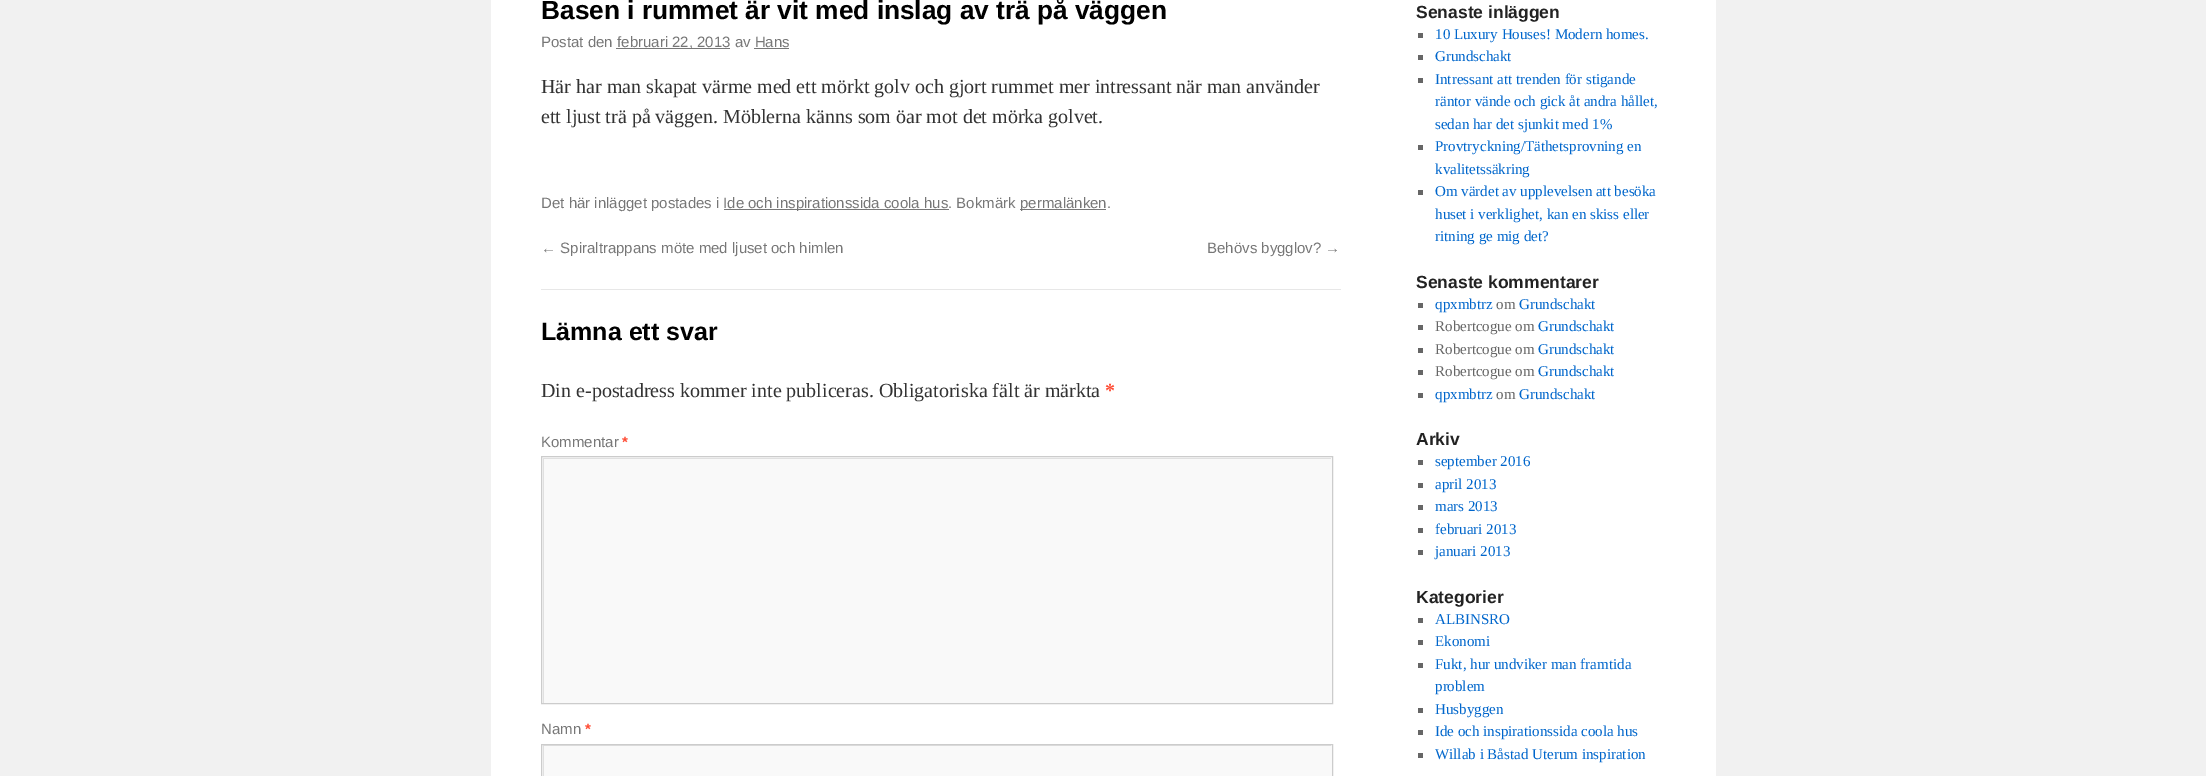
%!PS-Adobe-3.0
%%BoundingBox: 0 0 2206 776
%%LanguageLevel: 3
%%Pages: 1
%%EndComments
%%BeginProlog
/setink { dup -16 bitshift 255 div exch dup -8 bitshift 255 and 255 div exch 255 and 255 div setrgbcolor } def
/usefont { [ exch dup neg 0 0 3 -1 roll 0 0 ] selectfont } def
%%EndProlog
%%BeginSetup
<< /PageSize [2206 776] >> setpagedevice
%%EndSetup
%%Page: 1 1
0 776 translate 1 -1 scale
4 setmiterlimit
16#F1F1F1 setink
0 0 2206 776 rectfill
16#FFFFFF setink
491 0 1225 776 rectfill
/LiberationSans-Bold 26.25 usefont
16#000000 setink
541 19 moveto (Basen i rummet är vit med inslag av trä på väggen) show
/LiberationSans-Regular 15 usefont
16#777777 setink
541 47 moveto (Postat den) show
616 48 114 1 rectfill
617 47 moveto (februari 22, 2013 av Hans) show
754 48 35 1 rectfill
/LiberationSerif-Regular 20 usefont
16#333333 setink
541 93 moveto (Här har man skapat värme med ett mörkt golv och gjort rummet mer intressant när man använder) show
541 123 moveto (ett ljust trä på väggen. Möblerna känns som öar mot det mörka golvet.) show
/LiberationSans-Regular 15 usefont
16#777777 setink
541 208 moveto (Det här inlägget postades i) show
724 209 225 1 rectfill
723 208 moveto (Ide och inspirationssida coola hus. Bokmärk) show
1020 209 86 1 rectfill
[
    [(permalänken.) 1020 208]
    [(← Spiraltrappans möte med ljuset och himlen) 541 253]
    [(Behövs bygglov? →) 1207 253]
] { aload pop moveto show } forall
16#E7E7E7 setink
541 289 800 1 rectfill
/LiberationSans-Bold 25 usefont
16#000000 setink
541 340 moveto (Lämna ett svar) show
/LiberationSerif-Regular 20 usefont
16#333333 setink
541 397 moveto (Din e-postadress kommer inte publiceras. Obligatoriska fält är märkta) show
/LiberationSerif-Bold 20 usefont
16#FF4B33 setink
1105 397 moveto (*) show
/LiberationSans-Regular 15 usefont
16#777777 setink
541 447 moveto (Kommentar) show
/LiberationSans-Bold 15 usefont
16#FF4B33 setink
622 447 moveto (*) show
16#F9F9F9 setink
542 457 790 246 rectfill
gsave
543 458 788 245 rectclip
16#E0E0E0 setink
419 334 moveto 1455 334 lineto 1455 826 lineto 419 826 lineto closepath 544 459 moveto 1332 459 lineto 1332 704 lineto 544 704 lineto closepath eofill
grestore
16#CCCCCC setink
541.5 456.5 791 247 rectstroke
/LiberationSans-Regular 15 usefont
16#777777 setink
541 734 moveto (Namn) show
/LiberationSans-Bold 15 usefont
16#FF4B33 setink
585 734 moveto (*) show
16#F9F9F9 setink
542 745 790 31 rectfill
gsave
543 745 788 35 rectclip
16#E0E0E0 setink
419 621 moveto 1455 621 lineto 1455 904 lineto 419 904 lineto closepath 544 746 moveto 1332 746 lineto 1332 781 lineto 544 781 lineto closepath eofill
grestore
16#CCCCCC setink
541.5 744.5 791 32 rectstroke
/LiberationSans-Bold 17.5 usefont
16#222222 setink
1416 18 moveto (Senaste inläggen) show
16#666666 setink
1418 33 5 5 rectfill
/LiberationSerif-Regular 15 usefont
16#0066CC setink
1435 39 moveto (10 Luxury Houses! Modern homes.) show
16#666666 setink
1418 55 5 5 rectfill
16#0066CC setink
1435 61 moveto (Grundschakt) show
16#666666 setink
1418 78 5 5 rectfill
16#0066CC setink
[
    [(Intressant att trenden för stigande) 1435 84]
    [(räntor vände och gick åt andra hållet,) 1435 106]
    [(sedan har det sjunkit med 1%) 1435 129]
] { aload pop moveto show } forall
16#666666 setink
1418 145 5 5 rectfill
16#0066CC setink
1435 151 moveto (Provtryckning/Täthetsprovning en) show
1435 174 moveto (kvalitetssäkring) show
16#666666 setink
1418 190 5 5 rectfill
16#0066CC setink
[
    [(Om värdet av upplevelsen att besöka) 1435 196]
    [(huset i verklighet, kan en skiss eller) 1435 219]
    [(ritning ge mig det?) 1435 241]
] { aload pop moveto show } forall
/LiberationSans-Bold 17.5 usefont
16#222222 setink
1416 288 moveto (Senaste kommentarer) show
16#666666 setink
1418 303 5 5 rectfill
/LiberationSerif-Regular 15 usefont
16#0066CC setink
1435 309 moveto (qpxmbtrz) show
16#666666 setink
1496 309 moveto (om) show
16#0066CC setink
1519 309 moveto (Grundschakt) show
16#666666 setink
1418 325 5 5 rectfill
1435 331 moveto (Robertcogue om) show
16#0066CC setink
1538 331 moveto (Grundschakt) show
16#666666 setink
1418 348 5 5 rectfill
1435 354 moveto (Robertcogue om) show
16#0066CC setink
1538 354 moveto (Grundschakt) show
16#666666 setink
1418 370 5 5 rectfill
1435 376 moveto (Robertcogue om) show
16#0066CC setink
1538 376 moveto (Grundschakt) show
16#666666 setink
1418 393 5 5 rectfill
16#0066CC setink
1435 399 moveto (qpxmbtrz) show
16#666666 setink
1496 399 moveto (om) show
16#0066CC setink
1519 399 moveto (Grundschakt) show
/LiberationSans-Bold 17.5 usefont
16#222222 setink
1416 445 moveto (Arkiv) show
16#666666 setink
1418 460 5 5 rectfill
/LiberationSerif-Regular 15 usefont
16#0066CC setink
1435 466 moveto (september 2016) show
16#666666 setink
1418 483 5 5 rectfill
16#0066CC setink
1435 489 moveto (april 2013) show
16#666666 setink
1418 505 5 5 rectfill
16#0066CC setink
1435 511 moveto (mars 2013) show
16#666666 setink
1418 528 5 5 rectfill
16#0066CC setink
1435 534 moveto (februari 2013) show
16#666666 setink
1418 550 5 5 rectfill
16#0066CC setink
1435 556 moveto (januari 2013) show
/LiberationSans-Bold 17.5 usefont
16#222222 setink
1416 603 moveto (Kategorier) show
16#666666 setink
1418 618 5 5 rectfill
/LiberationSerif-Regular 15 usefont
16#0066CC setink
1435 624 moveto (ALBINSRO) show
16#666666 setink
1418 640 5 5 rectfill
16#0066CC setink
1435 646 moveto (Ekonomi) show
16#666666 setink
1418 663 5 5 rectfill
16#0066CC setink
1435 669 moveto (Fukt, hur undviker man framtida) show
1435 691 moveto (problem) show
16#666666 setink
1418 708 5 5 rectfill
16#0066CC setink
1435 714 moveto (Husbyggen) show
16#666666 setink
1418 730 5 5 rectfill
16#0066CC setink
1435 736 moveto (Ide och inspirationssida coola hus) show
16#666666 setink
1418 753 5 5 rectfill
16#0066CC setink
1435 759 moveto (Willab i Båstad Uterum inspiration) show
showpage
%%EOF
